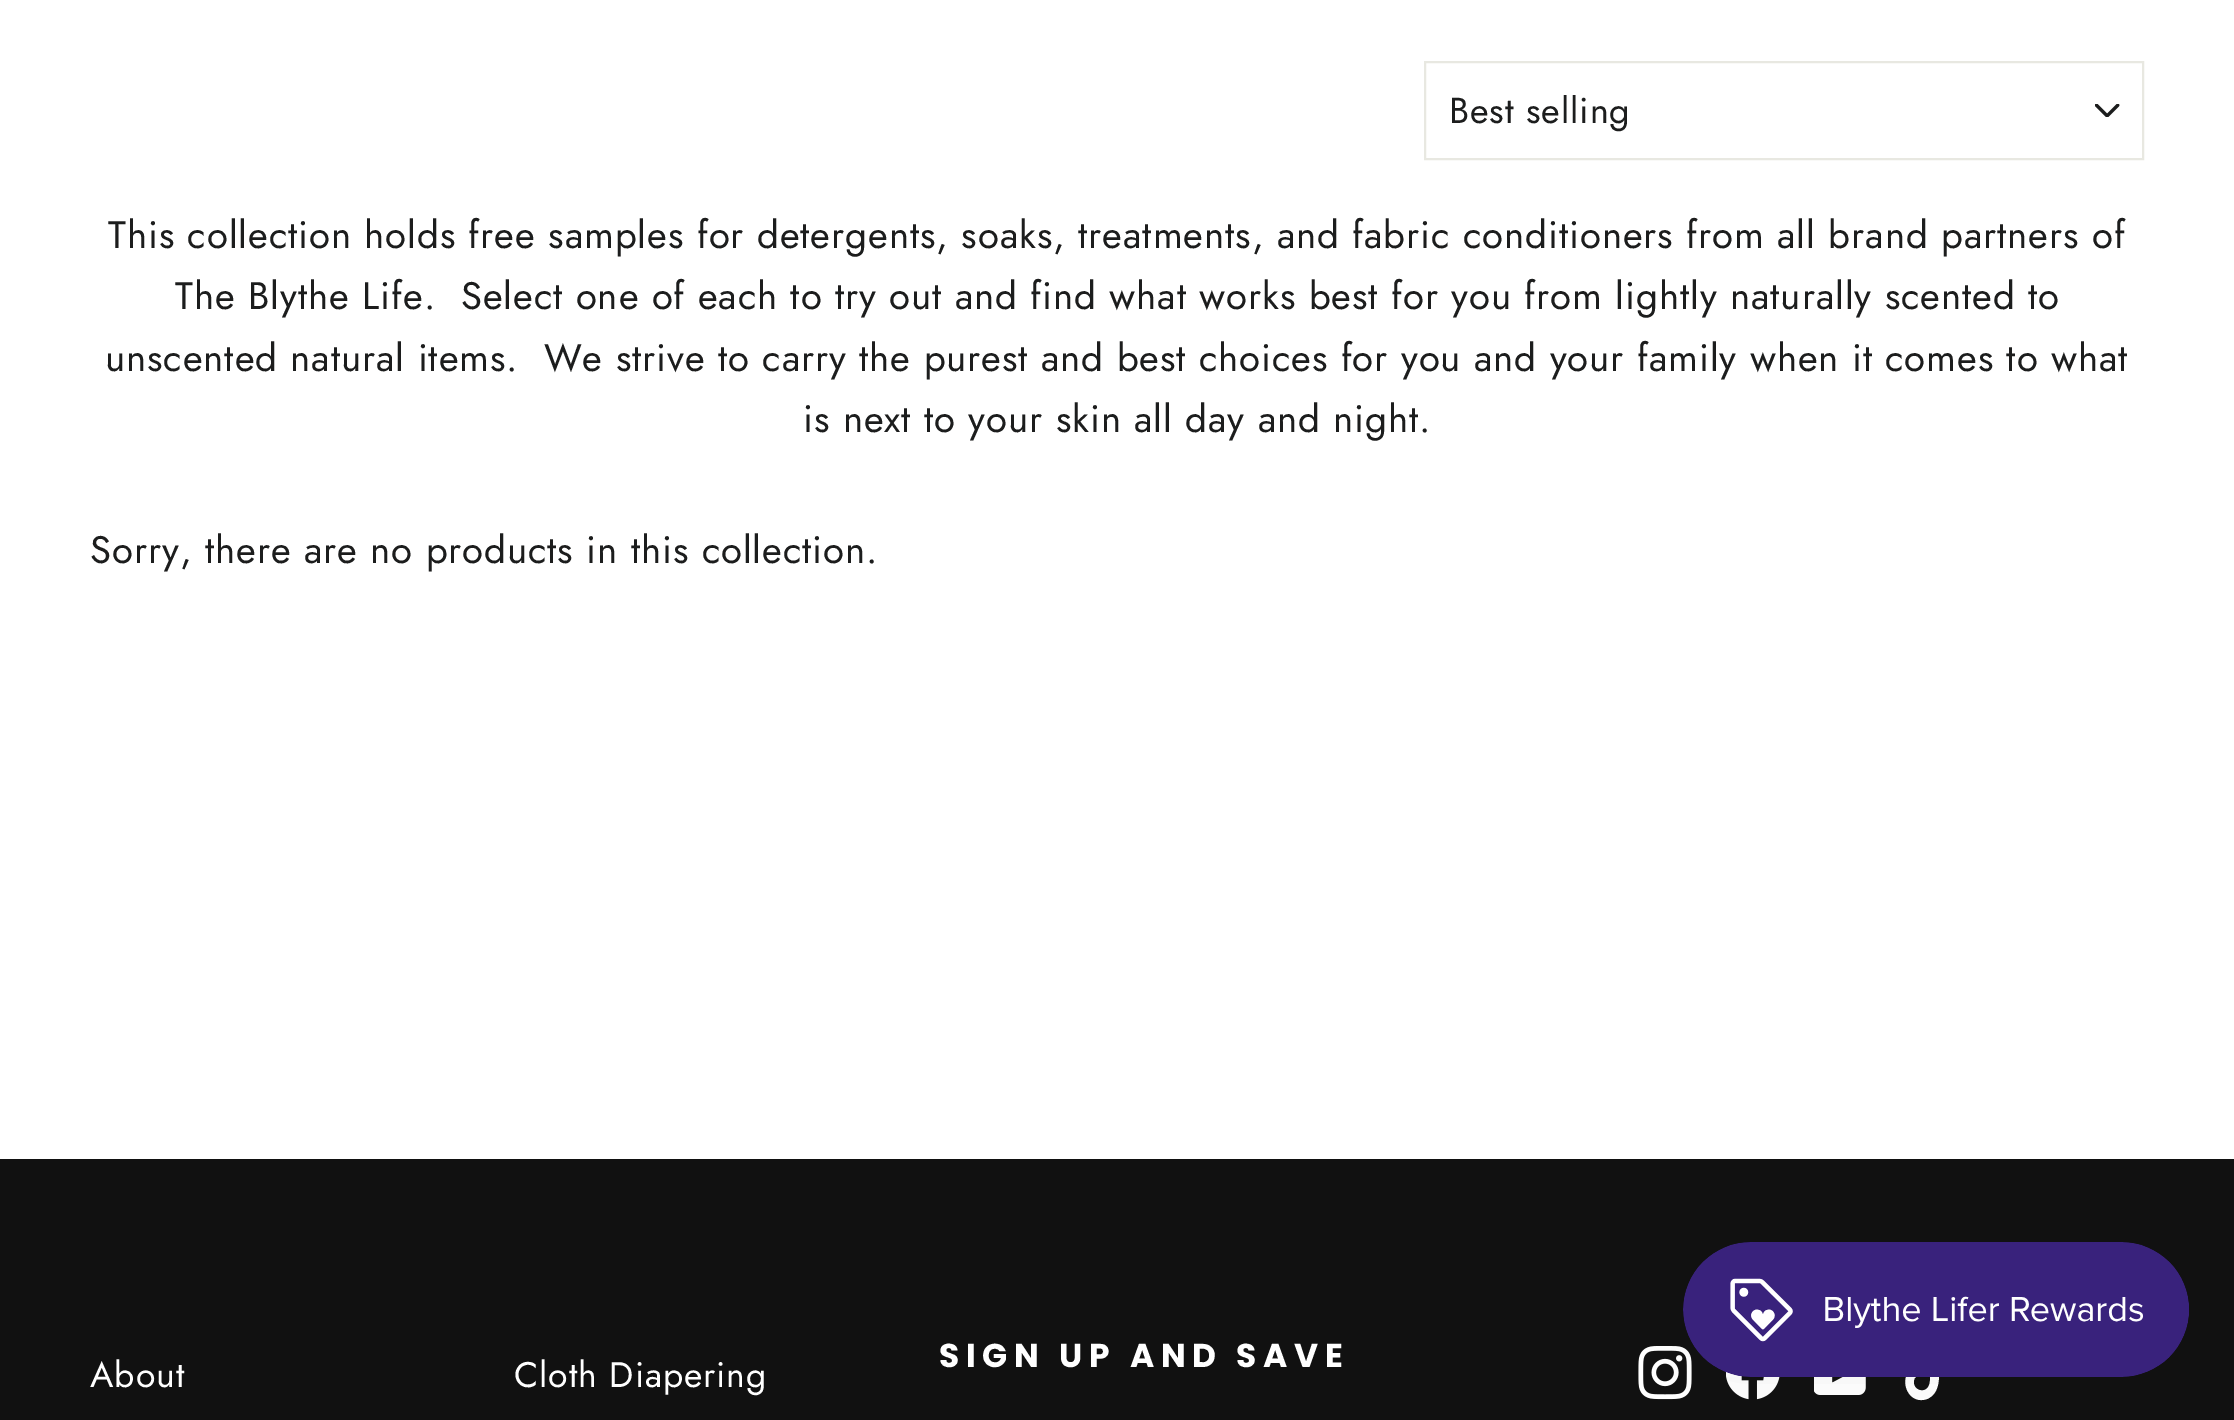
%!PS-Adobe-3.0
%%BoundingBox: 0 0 2234 1420
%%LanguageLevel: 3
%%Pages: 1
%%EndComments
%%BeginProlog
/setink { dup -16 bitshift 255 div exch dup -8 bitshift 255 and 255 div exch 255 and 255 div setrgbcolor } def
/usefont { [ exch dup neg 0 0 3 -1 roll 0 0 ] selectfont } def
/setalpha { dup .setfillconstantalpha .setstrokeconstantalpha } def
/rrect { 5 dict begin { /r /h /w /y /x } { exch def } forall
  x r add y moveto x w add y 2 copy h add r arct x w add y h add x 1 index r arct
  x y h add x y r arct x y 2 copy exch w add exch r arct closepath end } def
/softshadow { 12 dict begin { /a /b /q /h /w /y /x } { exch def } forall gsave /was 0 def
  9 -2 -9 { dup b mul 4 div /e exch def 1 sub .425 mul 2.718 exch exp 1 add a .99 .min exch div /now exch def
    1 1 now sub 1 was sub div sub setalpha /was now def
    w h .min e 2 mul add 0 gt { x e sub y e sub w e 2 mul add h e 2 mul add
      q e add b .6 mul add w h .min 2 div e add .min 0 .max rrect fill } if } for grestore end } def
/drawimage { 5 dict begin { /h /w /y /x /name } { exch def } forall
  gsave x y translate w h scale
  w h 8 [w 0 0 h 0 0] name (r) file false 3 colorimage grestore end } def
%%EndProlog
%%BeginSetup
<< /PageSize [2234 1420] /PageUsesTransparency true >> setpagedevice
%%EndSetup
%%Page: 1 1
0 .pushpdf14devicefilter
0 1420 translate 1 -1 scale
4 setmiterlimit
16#FFFFFF setink
0 0 2234 1420 rectfill
(img1.raw) 2095 104 25 13 drawimage
16#E8E8E1 setink
2 setlinewidth
1425 62 718 97 rectstroke
/Jost-Regular 36 usefont
16#1C1D1D setink
1449 123 moveto 0.9 0 (Best selling) ashow
/Jost-Regular 38.25 usefont
108 248 moveto 0.96 0 (This collection holds free samples for detergents, soaks, treatments, and fabric conditioners from all brand partners of) ashow
175 309 moveto 0.96 0 (The Blythe Life.  Select one of each to try out and find what works best for you from lightly naturally scented to) ashow
105 371 moveto 0.96 0 (unscented natural items.  We strive to carry the purest and best choices for you and your family when it comes to what) ashow
803 432 moveto 0.96 0 (is next to your skin all day and night.) ashow
90 563 moveto 0.96 0 (Sorry, there are no products in this collection.) ashow
16#111111 setink
0 1159 2234 261 rectfill
/Jost-Regular 35.5 usefont
16#FFFFFF setink
90 1387 moveto 0.96 0 (About) ashow
514 1387 moveto 0.96 0 (Cloth Diapering) ashow
/Poppins-Bold 33 usefont
939 1367 moveto 6.6 0 (SIGN UP AND SAVE) ashow
(img2.raw) 1638 1346 54 54 drawimage
(img3.raw) 1726 1372 54 28 drawimage
(img4.raw) 1814 1377 52 18 drawimage
1939 1346 moveto 1940 1353 1944 1358 1951 1358 curveto 1951 1367 lineto 1947 1367 1943 1366 1939 1363 curveto 1939 1376 1941 1393 1927 1399 curveto 1904 1407 1894 1366 1924 1365 curveto 1924 1374 lineto 1920 1375 lineto 1915 1376 1913 1379 1914 1384 curveto 1915 1392 1931 1395 1930 1378 curveto 1930 1346 lineto closepath fill
16#000000 setink
1683 1242 506 135 67.5 28 0.05 softshadow
(img5.raw) 1683 1242 506 135 drawimage
.poppdf14devicefilter showpage
%%EOF
